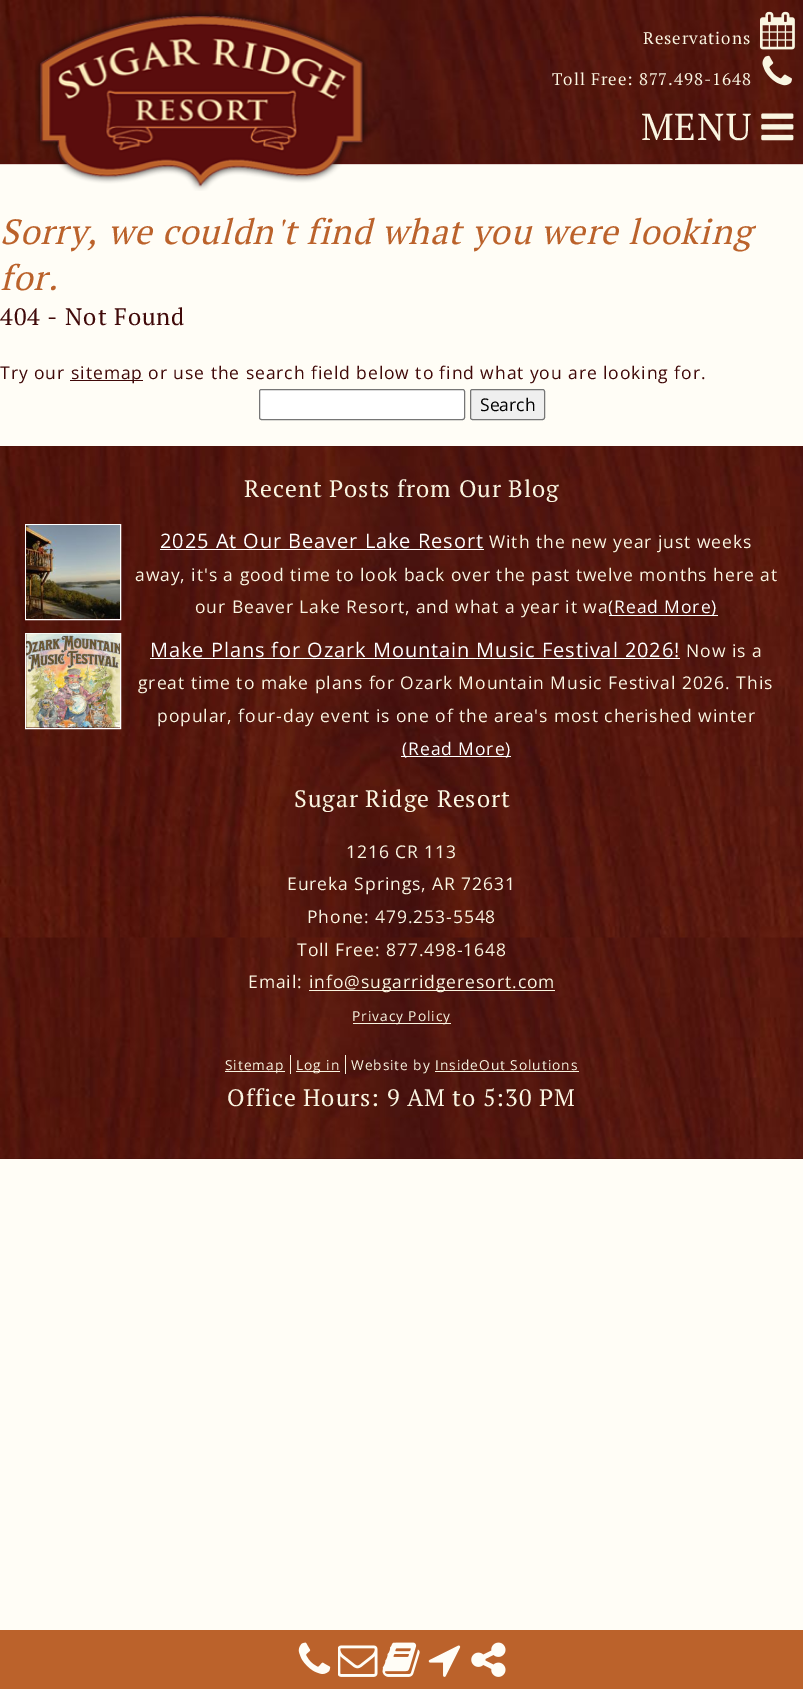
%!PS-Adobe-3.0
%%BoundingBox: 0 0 803 1689
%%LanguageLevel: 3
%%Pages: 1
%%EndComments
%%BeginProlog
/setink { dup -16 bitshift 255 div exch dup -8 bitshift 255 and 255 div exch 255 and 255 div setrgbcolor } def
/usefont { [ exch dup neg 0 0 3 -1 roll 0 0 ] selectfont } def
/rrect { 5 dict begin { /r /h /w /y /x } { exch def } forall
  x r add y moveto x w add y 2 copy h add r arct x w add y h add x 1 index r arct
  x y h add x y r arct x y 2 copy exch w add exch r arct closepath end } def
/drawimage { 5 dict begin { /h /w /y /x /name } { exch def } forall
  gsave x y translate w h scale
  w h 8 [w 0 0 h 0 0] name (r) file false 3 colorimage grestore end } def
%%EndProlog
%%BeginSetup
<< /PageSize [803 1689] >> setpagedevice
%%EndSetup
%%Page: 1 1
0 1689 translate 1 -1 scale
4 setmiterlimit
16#FFFDF6 setink
0 0 803 1689 rectfill
16#5A0D0D setink
0 163 803 1 rectfill
(img1.raw) 0 0 803 165 drawimage
(img2.raw) 35 10 333 181 drawimage
/PTSerif-Regular 16.9 usefont
16#FAF5E1 setink
643 44 moveto 0.93 0 (Reservations) ashow
(img3.raw) 760 11 35 39 drawimage
552 85 moveto 0.93 0 (Toll Free: 877.498-1648) ashow
(img4.raw) 762 55 30 31 drawimage
/PTSerif-Regular 37.5 usefont
641 140 moveto 0.93 0 (MENU) ashow
(img5.raw) 761 113 33 28 drawimage
/PTSerif-Italic 35 usefont
16#BB622B setink
0 244 moveto 0.93 0 (Sorry, we couldn't find what you were looking) ashow
0 290 moveto 0.93 0 (for.) ashow
/PTSerif-Regular 23.75 usefont
16#400909 setink
0 325 moveto 0.93 0 (404 - Not Found) ashow
/OpenSans-Regular 17.5 usefont
0 379 moveto 0.93 0 (Try our) ashow
70 380 73 1 rectfill
71 379 moveto 0.93 0 (sitemap or use the search field below to find what you are looking for.) ashow
16#FFFFFF setink
259.5 389.5 205 30 2 rrect gsave fill grestore
16#767676 setink
stroke
16#EFEFEF setink
470.5 389.5 74 30 2 rrect gsave fill grestore
16#767676 setink
stroke
16#000000 setink
480 411 moveto (Search) show
(img6.raw) 0 446 803 713 drawimage
/PTSerif-Regular 23.75 usefont
16#FAF5E1 setink
244 497 moveto 0.93 0 (Recent Posts from Our Blog) ashow
16#FFFFFF setink
25.5 524.5 95 95 rectstroke
(img7.raw) 26 525 94 94 drawimage
/OpenSans-Regular 20 usefont
160 548 moveto 0.93 0 (2025 At Our Beaver Lake Resort) ashow
160 549 324 1 rectfill
/OpenSans-Regular 17.5 usefont
16#FAF5E1 setink
489 548 moveto 0.93 0 (With the new year just weeks) ashow
135 581 moveto 0.93 0 (away, it's a good time to look back over the past twelve months here at) ashow
195 613 moveto 0.93 0 (our Beaver Lake Resort, and what a year it wa) ashow
16#FFFFFF setink
609 615 109 1 rectfill
608 613 moveto 0.93 0 (\(Read More\)) ashow
25.5 633.5 95 95 rectstroke
(img8.raw) 26 633 94 95 drawimage
/OpenSans-Regular 20 usefont
150 657 moveto 0.93 0 (Make Plans for Ozark Mountain Music Festival 2026!) ashow
150 658 530 1 rectfill
/OpenSans-Regular 17.5 usefont
16#FAF5E1 setink
686 657 moveto 0.93 0 (Now is a) ashow
138 689 moveto 0.93 0 (great time to make plans for Ozark Mountain Music Festival 2026. This) ashow
157 722 moveto 0.93 0 (popular, four-day event is one of the area's most cherished winter) ashow
16#FFFFFF setink
401 756 110 1 rectfill
402 755 moveto 0.93 0 (\(Read More\)) ashow
/PTSerif-Regular 23.75 usefont
16#FAF5E1 setink
294 807 moveto 0.93 0 (Sugar Ridge Resort) ashow
/OpenSans-Regular 17.5 usefont
346 858 moveto 0.93 0 (1216 CR 113) ashow
287 890 moveto 0.93 0 (Eureka Springs, AR 72631) ashow
307 923 moveto 0.93 0 (Phone: 479.253-5548) ashow
297 956 moveto 0.93 0 (Toll Free: 877.498-1648) ashow
248 988 moveto 0.93 0 (Email:) ashow
309 990 246 1 rectfill
309 988 moveto 0.93 0 (info@sugarridgeresort.com) ashow
353 1023 98 1 rectfill
/OpenSans-Regular 13.75 usefont
352 1021 moveto 0.93 0 (Privacy Policy) ashow
225 1071 60 1 rectfill
225 1070 moveto 0.93 0 (Sitemap) ashow
290 1055 1 19 rectfill
296 1071 44 1 rectfill
296 1070 moveto 0.93 0 (Log in) ashow
345 1055 1 19 rectfill
351 1070 moveto 0.93 0 (Website by InsideOut Solutions) ashow
435 1071 144 1 rectfill
/PTSerif-Regular 23.75 usefont
227 1106 moveto 0.93 0 (Office Hours: 9 AM to 5:30 PM) ashow
16#BB622B setink
0 1630 803 59 rectfill
(img9.raw) 298 1642 33 32 drawimage
(img10.raw) 338 1645 40 32 drawimage
(img11.raw) 382 1642 38 35 drawimage
(img12.raw) 428 1645 33 32 drawimage
(img13.raw) 471 1642 35 35 drawimage
showpage
%%EOF
